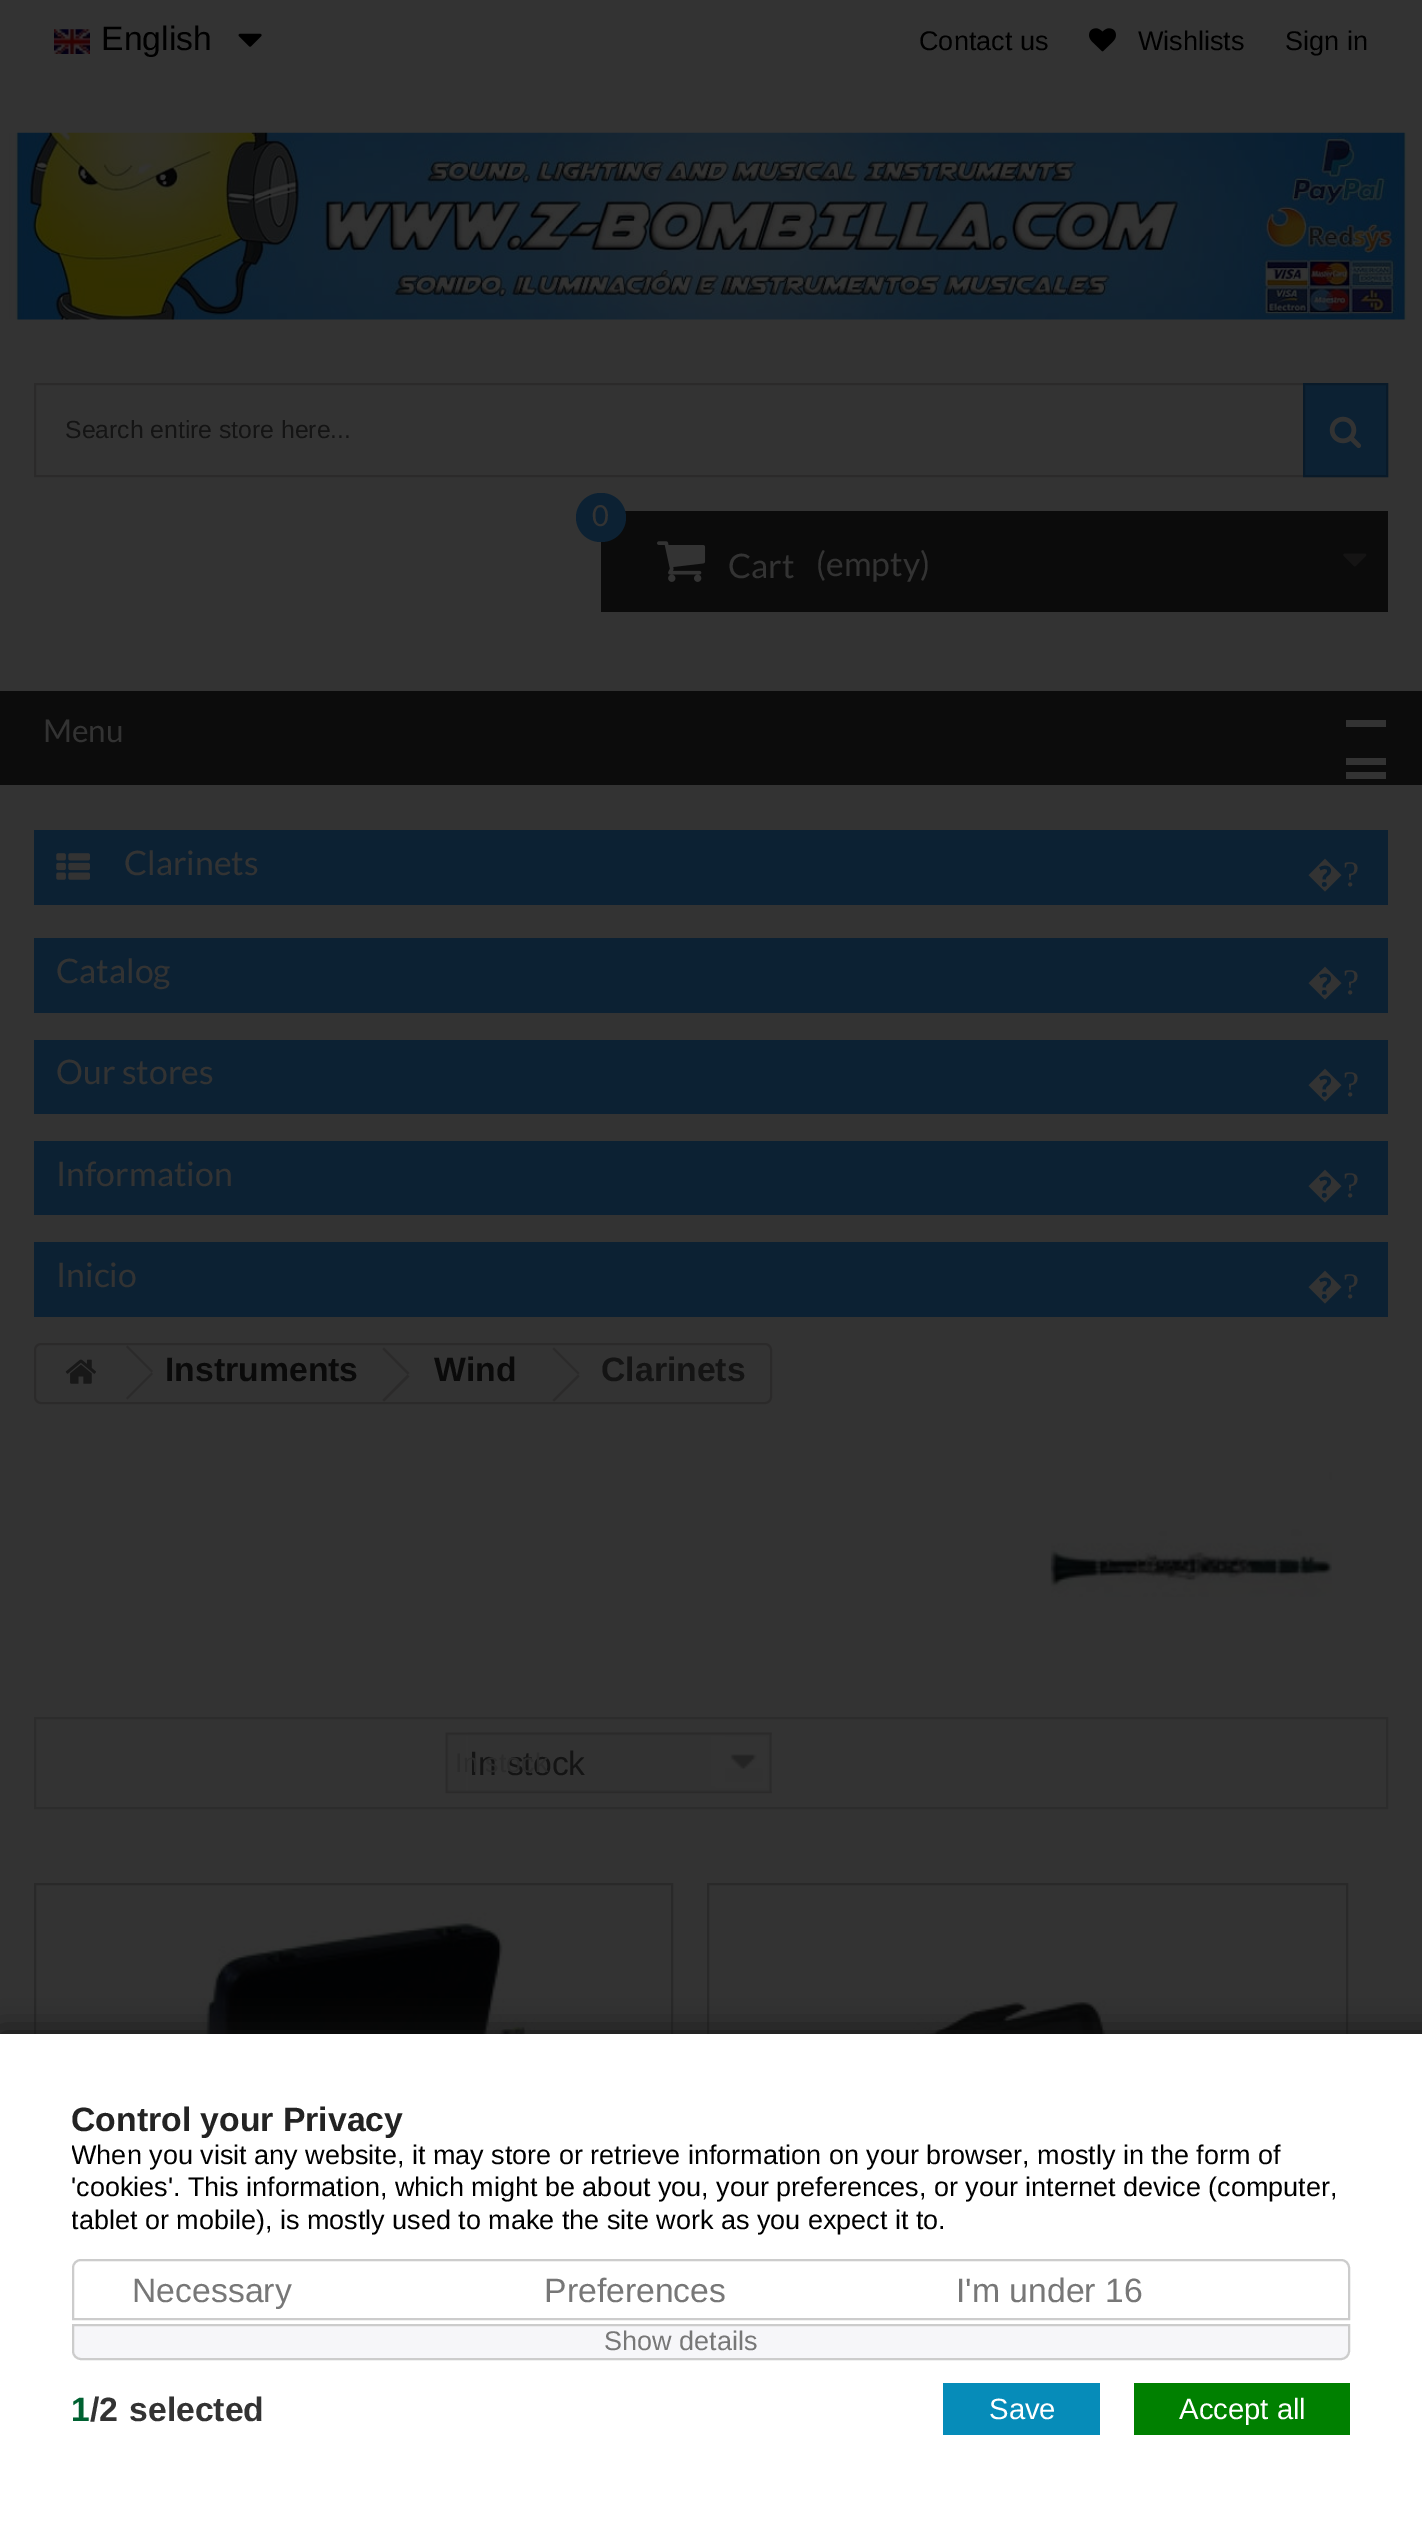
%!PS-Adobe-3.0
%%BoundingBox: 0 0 1422 2523
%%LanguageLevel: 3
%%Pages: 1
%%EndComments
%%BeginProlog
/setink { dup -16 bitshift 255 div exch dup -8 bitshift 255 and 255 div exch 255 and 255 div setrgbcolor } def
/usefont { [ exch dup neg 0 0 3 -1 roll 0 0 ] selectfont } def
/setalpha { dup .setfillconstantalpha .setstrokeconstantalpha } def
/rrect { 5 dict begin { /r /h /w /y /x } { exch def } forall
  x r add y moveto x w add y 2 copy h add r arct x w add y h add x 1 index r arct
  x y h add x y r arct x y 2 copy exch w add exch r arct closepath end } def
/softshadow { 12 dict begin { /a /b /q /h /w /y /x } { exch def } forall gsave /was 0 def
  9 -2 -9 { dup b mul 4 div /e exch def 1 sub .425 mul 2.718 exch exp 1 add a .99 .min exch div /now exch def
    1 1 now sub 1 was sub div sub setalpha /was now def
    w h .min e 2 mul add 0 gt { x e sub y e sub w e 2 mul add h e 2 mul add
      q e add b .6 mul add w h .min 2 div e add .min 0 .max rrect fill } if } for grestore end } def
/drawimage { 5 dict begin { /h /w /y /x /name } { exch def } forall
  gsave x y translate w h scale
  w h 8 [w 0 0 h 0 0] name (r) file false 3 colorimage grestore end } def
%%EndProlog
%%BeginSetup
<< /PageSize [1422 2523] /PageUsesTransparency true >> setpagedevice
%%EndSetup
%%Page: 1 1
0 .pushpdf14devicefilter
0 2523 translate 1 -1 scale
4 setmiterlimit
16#333333 setink
0 0 1422 2523 rectfill
(img1.raw) 54 29 36 25 drawimage
/LiberationSans-Regular 33.75 usefont
16#000000 setink
101 50 moveto (English) show
(img2.raw) 238 33 24 14 drawimage
/LiberationSans-Regular 27 usefont
919 50 moveto (Contact us) show
(img3.raw) 1089 28 27 24 drawimage
1138 50 moveto (Wishlists) show
1285 50 moveto (Sign in) show
(img4.raw) 9 132 1398 188 drawimage
16#2B2A2A setink
2 setlinewidth
35 384 1352 92 rectstroke
/LiberationSans-Regular 24.75 usefont
16#141414 setink
65 438 moveto (Search entire store here...) show
16#0C2133 setink
1304 384 moveto 1387 384 lineto 1387 476 lineto 1304 476 lineto closepath gsave fill grestore
16#091A29 setink
stroke
(img5.raw) 1329 416 33 33 drawimage
16#0B0B0B setink
601 511 787 101 rectfill
16#0C2133 setink
576 493 50 49 24.5 rrect fill
/Lato-Regular 29 usefont
16#333333 setink
592 526 moveto (0) show
/Lato-Regular 33.75 usefont
816 576 moveto (\(empty\)) show
(img6.raw) 657 541 49 41 drawimage
728 578 moveto (Cart) show
(img7.raw) 1343 553 24 14 drawimage
16#0C0C0C setink
0 691 1422 94 rectfill
/Lato-Regular 31.5 usefont
16#333333 setink
43 742 moveto (Menu) show
[
    [1346 720 40 7 16#333333]
    [1346 758 40 7 16#333333]
    [1346 772 40 7 16#333333]
    [34 830 1354 75 16#0C2133]
] { aload pop setink rectfill } forall
(img8.raw) 56 853 34 27 drawimage
/Lato-Regular 33.75 usefont
16#333333 setink
124 875 moveto (Clarinets) show
/NotoSans-Regular 36 usefont
1307 886 moveto (�) show
/LiberationSerif-Regular 36 usefont
1343 886 moveto (?) show
16#0C2133 setink
34 938 1354 75 rectfill
/Lato-Regular 33.75 usefont
16#333333 setink
56 983 moveto (Catalog) show
/NotoSans-Regular 36 usefont
1307 994 moveto (�) show
/LiberationSerif-Regular 36 usefont
1343 994 moveto (?) show
16#0C2133 setink
34 1040 1354 74 rectfill
/Lato-Regular 33.75 usefont
16#333333 setink
56 1084 moveto (Our stores) show
/NotoSans-Regular 36 usefont
1307 1096 moveto (�) show
/LiberationSerif-Regular 36 usefont
1343 1096 moveto (?) show
16#0C2133 setink
34 1141 1354 74 rectfill
/Lato-Regular 33.75 usefont
16#333333 setink
56 1186 moveto (Information) show
/NotoSans-Regular 36 usefont
1307 1197 moveto (�) show
/LiberationSerif-Regular 36 usefont
1343 1197 moveto (?) show
16#0C2133 setink
34 1242 1354 75 rectfill
/Lato-Regular 33.75 usefont
16#333333 setink
56 1287 moveto (Inicio) show
/NotoSans-Regular 36 usefont
1307 1298 moveto (�) show
/LiberationSerif-Regular 36 usefont
1343 1298 moveto (?) show
16#2B2A2A setink
35 1344 736 59 6 rrect stroke
(img9.raw) 65 1359 31 25 drawimage
127.5 1345.5 moveto 153 1371 lineto 151.5 1372.5 lineto 126 1347 lineto closepath fill
151.5 1372.5 moveto 153 1374 lineto 127.5 1399.5 lineto 126 1398 lineto closepath fill
/LiberationSans-Bold 33.75 usefont
16#0A0A0A setink
165 1381 moveto (Instruments) show
16#2B2A2A setink
384 1347.5 moveto 409.5 1373 lineto 407.5 1374.5 lineto 382.5 1349 lineto closepath fill
407.5 1374.5 moveto 409.5 1376.5 lineto 384 1401.5 lineto 382.5 1400 lineto closepath fill
16#0A0A0A setink
434 1381 moveto (Wind) show
16#2B2A2A setink
554 1347.5 moveto 579.5 1373 lineto 578 1374.5 lineto 552.5 1349 lineto closepath fill
578 1374.5 moveto 579.5 1376.5 lineto 554 1401.5 lineto 552.5 1400 lineto closepath fill
16#141414 setink
601 1381 moveto (Clarinets) show
(img10.raw) 1050 1472 282 125 drawimage
16#2C2C2C setink
35 1718 1352 90 rectstroke
(img11.raw) 445 1732 327 62 drawimage
(img12.raw) 468 1732 304 61 drawimage
/LiberationSans-Regular 33.75 usefont
16#141414 setink
469 1775 moveto (In stock) show
/LiberationSans-Regular 27 usefont
16#2B2B2B setink
455 1772 moveto (In stock) show
16#292929 setink
35 1884 637 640 rectstroke
(img13.raw) 109 1912 485 122 drawimage
708 1884 639 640 rectstroke
(img14.raw) 802 2000 413 34 drawimage
16#121212 setink
0 2034 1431 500 0 16 1 softshadow
16#FFFFFF setink
0 2034 1422 489 rectfill
/LiberationSans-Bold 33.75 usefont
16#232323 setink
71 2131 moveto (Control your Privacy) show
gsave
72 2102 1278 355 rectclip
/LiberationSans-Regular 27 usefont
16#000000 setink
71 2164 moveto (When you visit any website, it may store or retrieve information on your browser, mostly in the form of) show
grestore
/LiberationSans-Regular 27 usefont
16#000000 setink
71 2196 moveto ('cookies'. This information, which might be about you, your preferences, or your internet device \(computer,) show
gsave
72 2102 1278 355 rectclip
71 2229 moveto (tablet or mobile\), is mostly used to make the site work as you expect it to.) show
grestore
16#CCCCCC setink
81 2260 moveto 1341 2260 lineto 1345.5 2260 1349 2263.5 1349 2268 curveto 1349 2319 lineto 73 2319 lineto 73 2268 lineto 73 2263.5 76.5 2260 81 2260 curveto closepath stroke
/LiberationSans-Regular 33.75 usefont
16#777777 setink
[
    [(Necessary) 132 2302]
    [(Preferences) 544 2302]
    [(I'm under 16) 956 2302]
] { aload pop moveto show } forall
16#F6F6F9 setink
73 2325 moveto 1349 2325 lineto 1349 2351 lineto 1349 2355.5 1345.5 2359 1341 2359 curveto 81 2359 lineto 76.5 2359 73 2355.5 73 2351 curveto closepath gsave fill grestore
16#CCCCCC setink
stroke
/LiberationSans-Regular 27 usefont
16#777777 setink
604 2350 moveto (Show details) show
/LiberationSans-Bold 33.75 usefont
16#006131 setink
71 2421 moveto (1) show
16#333333 setink
90 2421 moveto (/2) show
129 2421 moveto (selected) show
16#068CB9 setink
943 2383 157 52 rectfill
/LiberationSans-Regular 29.25 usefont
16#FFFFFF setink
989 2419 moveto (Save) show
16#008000 setink
1134 2383 216 52 rectfill
16#FFFFFF setink
1179 2419 moveto (Accept all) show
.poppdf14devicefilter showpage
%%EOF
